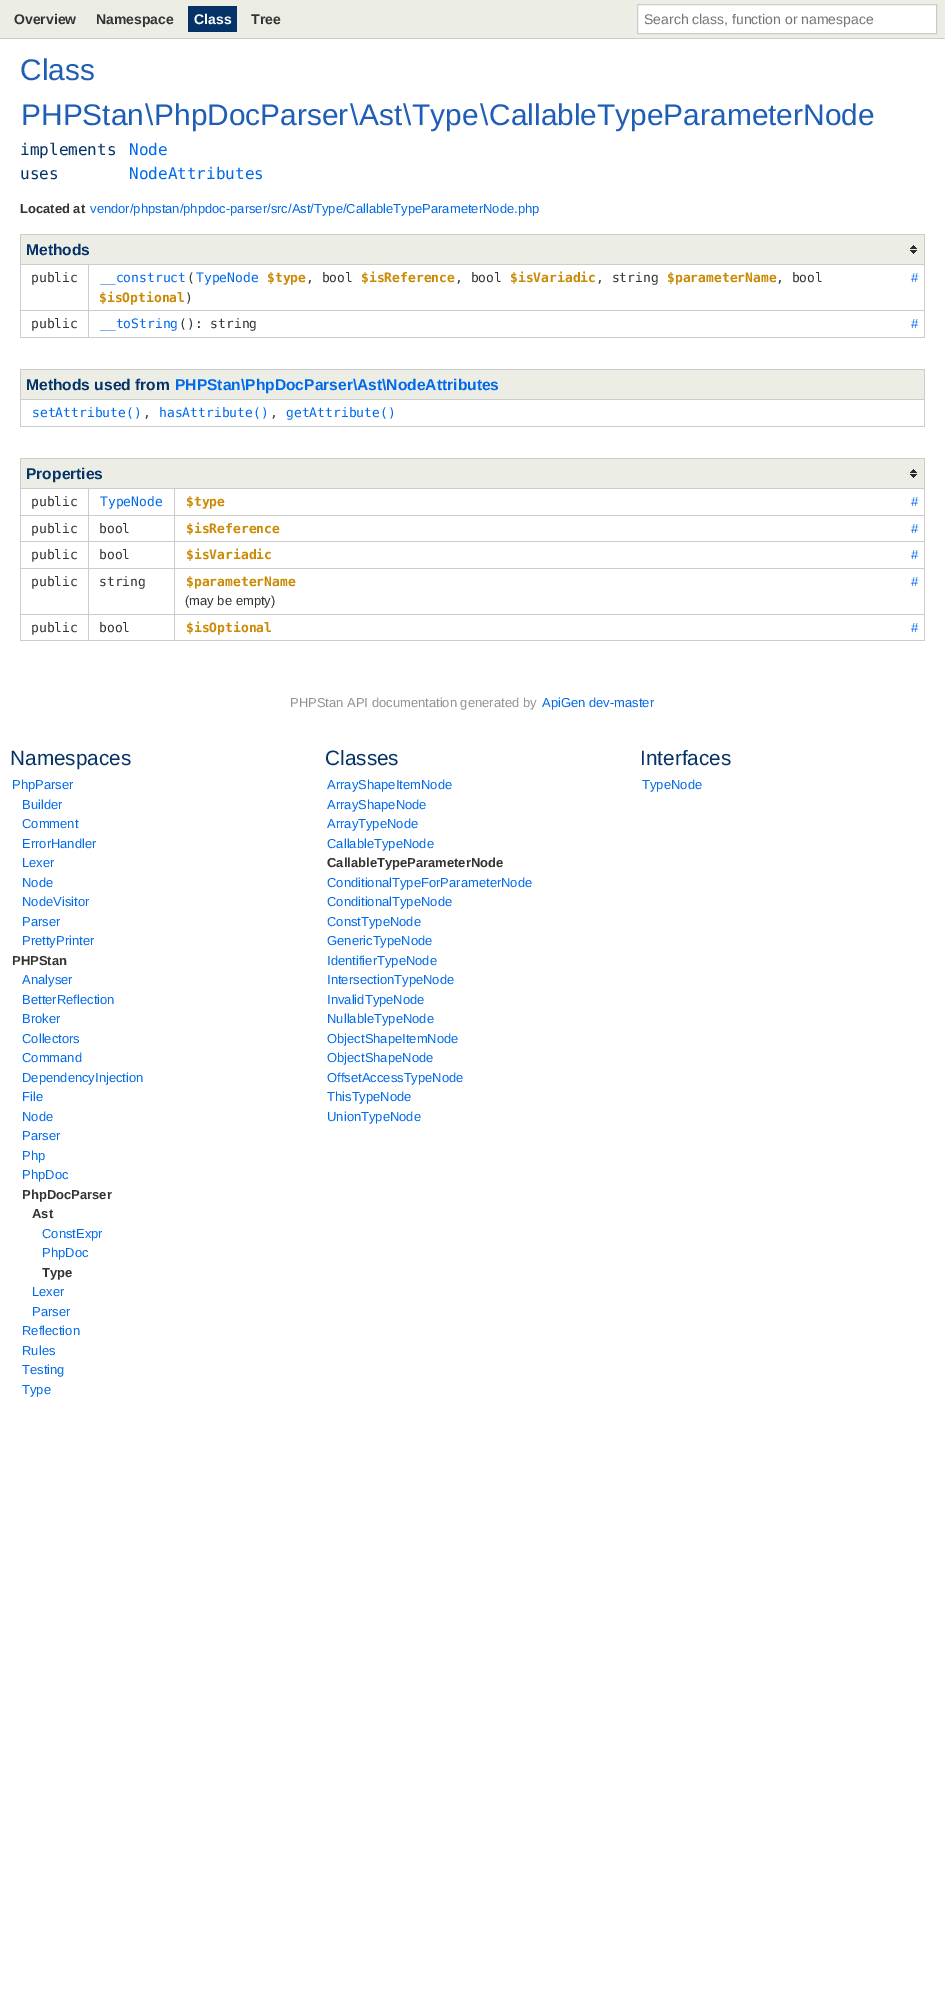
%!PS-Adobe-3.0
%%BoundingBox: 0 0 945 2007
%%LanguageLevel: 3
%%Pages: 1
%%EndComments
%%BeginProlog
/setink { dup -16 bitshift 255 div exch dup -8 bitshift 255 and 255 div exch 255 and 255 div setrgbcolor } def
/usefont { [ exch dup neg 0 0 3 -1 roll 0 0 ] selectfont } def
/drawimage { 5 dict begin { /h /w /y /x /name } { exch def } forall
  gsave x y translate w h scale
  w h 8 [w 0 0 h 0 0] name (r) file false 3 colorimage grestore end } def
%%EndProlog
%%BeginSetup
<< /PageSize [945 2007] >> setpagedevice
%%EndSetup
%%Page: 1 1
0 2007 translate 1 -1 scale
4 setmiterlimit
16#FFFFFF setink
0 0 945 2007 rectfill
16#ECEDE5 setink
0 0 945 38 rectfill
16#CCCCCC setink
0 38 945 1 rectfill
/LiberationSans-Bold 14 usefont
16#333333 setink
14 24 moveto (Overview) show
96 24 moveto (Namespace) show
16#053368 setink
188 6 49 26 rectfill
16#FFFFFF setink
194 24 moveto (Class) show
16#333333 setink
251 24 moveto (Tree) show
16#FFFFFF setink
637.5 4.5 moveto 936.5 4.5 lineto 936.5 33.5 lineto 637.5 33.5 lineto closepath gsave fill grestore
16#CCCCCC setink
stroke
/LiberationSans-Regular 14 usefont
16#757575 setink
644 24 moveto (Search class, function or namespace) show
/LiberationSans-Regular 29.9 usefont
16#1E5EB6 setink
[
    [(Class) 20 80]
    [(PHPStan) 21 125]
    [(\\) 145 125]
    [(PhpDocParser) 154 125]
    [(\\) 350 125]
    [(Ast) 359 125]
    [(\\) 403 125]
    [(Type) 412 125]
    [(\\) 480 125]
    [(CallableTypeParameterNode) 489 125]
] { aload pop moveto show } forall
/DejaVuSansMono-Regular 16 usefont
16#053368 setink
20 155 moveto (implements) show
16#006AEB setink
129 155 moveto (Node) show
16#053368 setink
20 179 moveto (uses) show
16#006AEB setink
129 179 moveto (NodeAttributes) show
/LiberationSans-Bold 13 usefont
16#333333 setink
20 213 moveto (Located at) show
/LiberationSans-Regular 13 usefont
16#006AEB setink
90 213 moveto (vendor/phpstan/phpdoc-parser/src/Ast/Type/CallableTypeParameterNode.php) show
16#ECEDE5 setink
21 235 903 29 rectfill
(img1.raw) 910 245 7 9 drawimage
[
    [20 234 905 1 16#CCCCCC]
    [88 264 837 1 16#CCCCCC]
    [88 310 837 1 16#CCCCCC]
    [924 310 1 28 16#CCCCCC]
    [924 264 1 47 16#CCCCCC]
    [924 234 1 31 16#CCCCCC]
    [88 337 837 1 16#CCCCCC]
    [88 310 1 28 16#CCCCCC]
    [20 310 69 1 16#CCCCCC]
    [88 264 1 47 16#CCCCCC]
    [20 264 69 1 16#CCCCCC]
    [20 337 69 1 16#CCCCCC]
    [20 310 1 28 16#CCCCCC]
    [20 264 1 47 16#CCCCCC]
    [20 234 1 31 16#CCCCCC]
] { aload pop setink rectfill } forall
/LiberationSans-Bold 15.6 usefont
16#053368 setink
26 255 moveto (Methods) show
/DejaVuSansMono-Regular 13 usefont
16#333333 setink
31 282 moveto (public) show
16#006AEB setink
100 282 moveto (__construct) show
16#333333 setink
187 282 moveto (\() show
16#006AEB setink
196 282 moveto (TypeNode) show
/DejaVuSansMono-Bold 13 usefont
16#CA8A04 setink
267 282 moveto ($type) show
/DejaVuSansMono-Regular 13 usefont
16#333333 setink
306 282 moveto (, bool) show
/DejaVuSansMono-Bold 13 usefont
16#CA8A04 setink
361 282 moveto ($isReference) show
/DejaVuSansMono-Regular 13 usefont
16#333333 setink
455 282 moveto (, bool) show
/DejaVuSansMono-Bold 13 usefont
16#CA8A04 setink
510 282 moveto ($isVariadic) show
/DejaVuSansMono-Regular 13 usefont
16#333333 setink
596 282 moveto (, string) show
/DejaVuSansMono-Bold 13 usefont
16#CA8A04 setink
667 282 moveto ($parameterName) show
/DejaVuSansMono-Regular 13 usefont
16#333333 setink
776 282 moveto (, bool) show
/DejaVuSansMono-Bold 13 usefont
16#CA8A04 setink
99 302 moveto ($isOptional) show
/DejaVuSansMono-Regular 13 usefont
16#333333 setink
185 302 moveto (\)) show
/LiberationSans-Regular 13 usefont
16#006AEB setink
911 282 moveto (#) show
/DejaVuSansMono-Regular 13 usefont
16#333333 setink
31 328 moveto (public) show
16#006AEB setink
100 328 moveto (__toString) show
16#333333 setink
179 328 moveto (\(\): string) show
/LiberationSans-Regular 13 usefont
16#006AEB setink
911 328 moveto (#) show
[
    [21 370 903 29 16#ECEDE5]
    [20 369 905 1 16#CCCCCC]
    [20 399 905 1 16#CCCCCC]
    [924 399 1 28 16#CCCCCC]
    [924 369 1 31 16#CCCCCC]
    [20 426 905 1 16#CCCCCC]
    [20 399 1 28 16#CCCCCC]
    [20 369 1 31 16#CCCCCC]
] { aload pop setink rectfill } forall
/LiberationSans-Bold 15.6 usefont
16#053368 setink
26 390 moveto (Methods used from) show
16#006AEB setink
175 390 moveto (PHPStan\\PhpDocParser\\Ast\\NodeAttributes) show
/DejaVuSansMono-Regular 13 usefont
32 417 moveto (setAttribute\(\)) show
16#333333 setink
143 417 moveto (,) show
16#006AEB setink
159 417 moveto (hasAttribute\(\)) show
16#333333 setink
270 417 moveto (,) show
16#006AEB setink
286 417 moveto (getAttribute\(\)) show
16#ECEDE5 setink
21 459 903 29 rectfill
(img1.raw) 910 469 7 9 drawimage
[
    [20 458 905 1 16#CCCCCC]
    [174 488 751 1 16#CCCCCC]
    [174 515 751 1 16#CCCCCC]
    [174 541 751 1 16#CCCCCC]
    [174 568 751 1 16#CCCCCC]
    [174 614 751 1 16#CCCCCC]
    [924 614 1 27 16#CCCCCC]
    [924 568 1 47 16#CCCCCC]
    [924 541 1 28 16#CCCCCC]
    [924 515 1 27 16#CCCCCC]
    [924 488 1 28 16#CCCCCC]
    [924 458 1 31 16#CCCCCC]
    [174 640 751 1 16#CCCCCC]
    [174 614 1 27 16#CCCCCC]
    [88 614 87 1 16#CCCCCC]
    [174 568 1 47 16#CCCCCC]
    [88 568 87 1 16#CCCCCC]
    [174 541 1 28 16#CCCCCC]
    [88 541 87 1 16#CCCCCC]
    [174 515 1 27 16#CCCCCC]
    [88 515 87 1 16#CCCCCC]
    [174 488 1 28 16#CCCCCC]
    [88 488 87 1 16#CCCCCC]
    [88 640 87 1 16#CCCCCC]
    [88 614 1 27 16#CCCCCC]
    [20 614 69 1 16#CCCCCC]
    [88 568 1 47 16#CCCCCC]
    [20 568 69 1 16#CCCCCC]
    [88 541 1 28 16#CCCCCC]
    [20 541 69 1 16#CCCCCC]
    [88 515 1 27 16#CCCCCC]
    [20 515 69 1 16#CCCCCC]
    [88 488 1 28 16#CCCCCC]
    [20 488 69 1 16#CCCCCC]
    [20 640 69 1 16#CCCCCC]
    [20 614 1 27 16#CCCCCC]
    [20 568 1 47 16#CCCCCC]
    [20 541 1 28 16#CCCCCC]
    [20 515 1 27 16#CCCCCC]
    [20 488 1 28 16#CCCCCC]
    [20 458 1 31 16#CCCCCC]
] { aload pop setink rectfill } forall
/LiberationSans-Bold 15.6 usefont
16#053368 setink
26 479 moveto (Properties) show
/DejaVuSansMono-Regular 13 usefont
16#333333 setink
31 506 moveto (public) show
16#006AEB setink
100 506 moveto (TypeNode) show
/DejaVuSansMono-Bold 13 usefont
16#CA8A04 setink
186 506 moveto ($type) show
/LiberationSans-Regular 13 usefont
16#006AEB setink
911 506 moveto (#) show
/DejaVuSansMono-Regular 13 usefont
16#333333 setink
31 533 moveto (public) show
99 533 moveto (bool) show
/DejaVuSansMono-Bold 13 usefont
16#CA8A04 setink
186 533 moveto ($isReference) show
/LiberationSans-Regular 13 usefont
16#006AEB setink
911 533 moveto (#) show
/DejaVuSansMono-Regular 13 usefont
16#333333 setink
31 559 moveto (public) show
99 559 moveto (bool) show
/DejaVuSansMono-Bold 13 usefont
16#CA8A04 setink
186 559 moveto ($isVariadic) show
/LiberationSans-Regular 13 usefont
16#006AEB setink
911 559 moveto (#) show
/DejaVuSansMono-Regular 13 usefont
16#333333 setink
31 586 moveto (public) show
99 586 moveto (string) show
/DejaVuSansMono-Bold 13 usefont
16#CA8A04 setink
186 586 moveto ($parameterName) show
/LiberationSans-Regular 13 usefont
16#333333 setink
185 605 moveto (\(may be empty\)) show
16#006AEB setink
911 586 moveto (#) show
/DejaVuSansMono-Regular 13 usefont
16#333333 setink
31 632 moveto (public) show
99 632 moveto (bool) show
/DejaVuSansMono-Bold 13 usefont
16#CA8A04 setink
186 632 moveto ($isOptional) show
/LiberationSans-Regular 13 usefont
16#006AEB setink
911 632 moveto (#) show
16#929292 setink
290 707 moveto (PHPStan API documentation generated by) show
16#006AEB setink
542 707 moveto (ApiGen dev-master) show
/LiberationSans-Regular 20.75 usefont
16#053368 setink
10 765 moveto (Namespaces) show
/LiberationSans-Regular 13 usefont
16#006AEB setink
[
    [(PhpParser) 12 789]
    [(Builder) 22 809]
    [(Comment) 22 828]
    [(ErrorHandler) 22 848]
    [(Lexer) 22 867]
    [(Node) 22 887]
    [(NodeVisitor) 22 906]
    [(Parser) 22 926]
    [(PrettyPrinter) 22 945]
] { aload pop moveto show } forall
/LiberationSans-Bold 13 usefont
16#333333 setink
12 965 moveto (PHPStan) show
/LiberationSans-Regular 13 usefont
16#006AEB setink
[
    [(Analyser) 22 984]
    [(BetterReflection) 22 1004]
    [(Broker) 22 1023]
    [(Collectors) 22 1043]
    [(Command) 22 1062]
    [(DependencyInjection) 22 1082]
    [(File) 22 1101]
    [(Node) 22 1121]
    [(Parser) 22 1140]
    [(Php) 22 1160]
    [(PhpDoc) 22 1179]
] { aload pop moveto show } forall
/LiberationSans-Bold 13 usefont
16#333333 setink
22 1199 moveto (PhpDocParser) show
32 1218 moveto (Ast) show
/LiberationSans-Regular 13 usefont
16#006AEB setink
42 1238 moveto (ConstExpr) show
42 1257 moveto (PhpDoc) show
/LiberationSans-Bold 13 usefont
16#333333 setink
42 1277 moveto (Type) show
/LiberationSans-Regular 13 usefont
16#006AEB setink
[
    [(Lexer) 32 1296]
    [(Parser) 32 1316]
    [(Reflection) 22 1335]
    [(Rules) 22 1355]
    [(Testing) 22 1374]
    [(Type) 22 1394]
] { aload pop moveto show } forall
/LiberationSans-Regular 20.75 usefont
16#053368 setink
325 765 moveto (Classes) show
/LiberationSans-Regular 13 usefont
16#006AEB setink
[
    [(ArrayShapeItemNode) 327 789]
    [(ArrayShapeNode) 327 809]
    [(ArrayTypeNode) 327 828]
    [(CallableTypeNode) 327 848]
] { aload pop moveto show } forall
/LiberationSans-Bold 13 usefont
16#333333 setink
327 867 moveto (CallableTypeParameterNode) show
/LiberationSans-Regular 13 usefont
16#006AEB setink
[
    [(ConditionalTypeForParameterNode) 327 887]
    [(ConditionalTypeNode) 327 906]
    [(ConstTypeNode) 327 926]
    [(GenericTypeNode) 327 945]
    [(IdentifierTypeNode) 327 965]
    [(IntersectionTypeNode) 327 984]
    [(InvalidTypeNode) 327 1004]
    [(NullableTypeNode) 327 1023]
    [(ObjectShapeItemNode) 327 1043]
    [(ObjectShapeNode) 327 1062]
    [(OffsetAccessTypeNode) 327 1082]
    [(ThisTypeNode) 327 1101]
    [(UnionTypeNode) 327 1121]
] { aload pop moveto show } forall
/LiberationSans-Regular 20.75 usefont
16#053368 setink
640 765 moveto (Interfaces) show
/LiberationSans-Regular 13 usefont
16#006AEB setink
642 789 moveto (TypeNode) show
showpage
%%EOF
